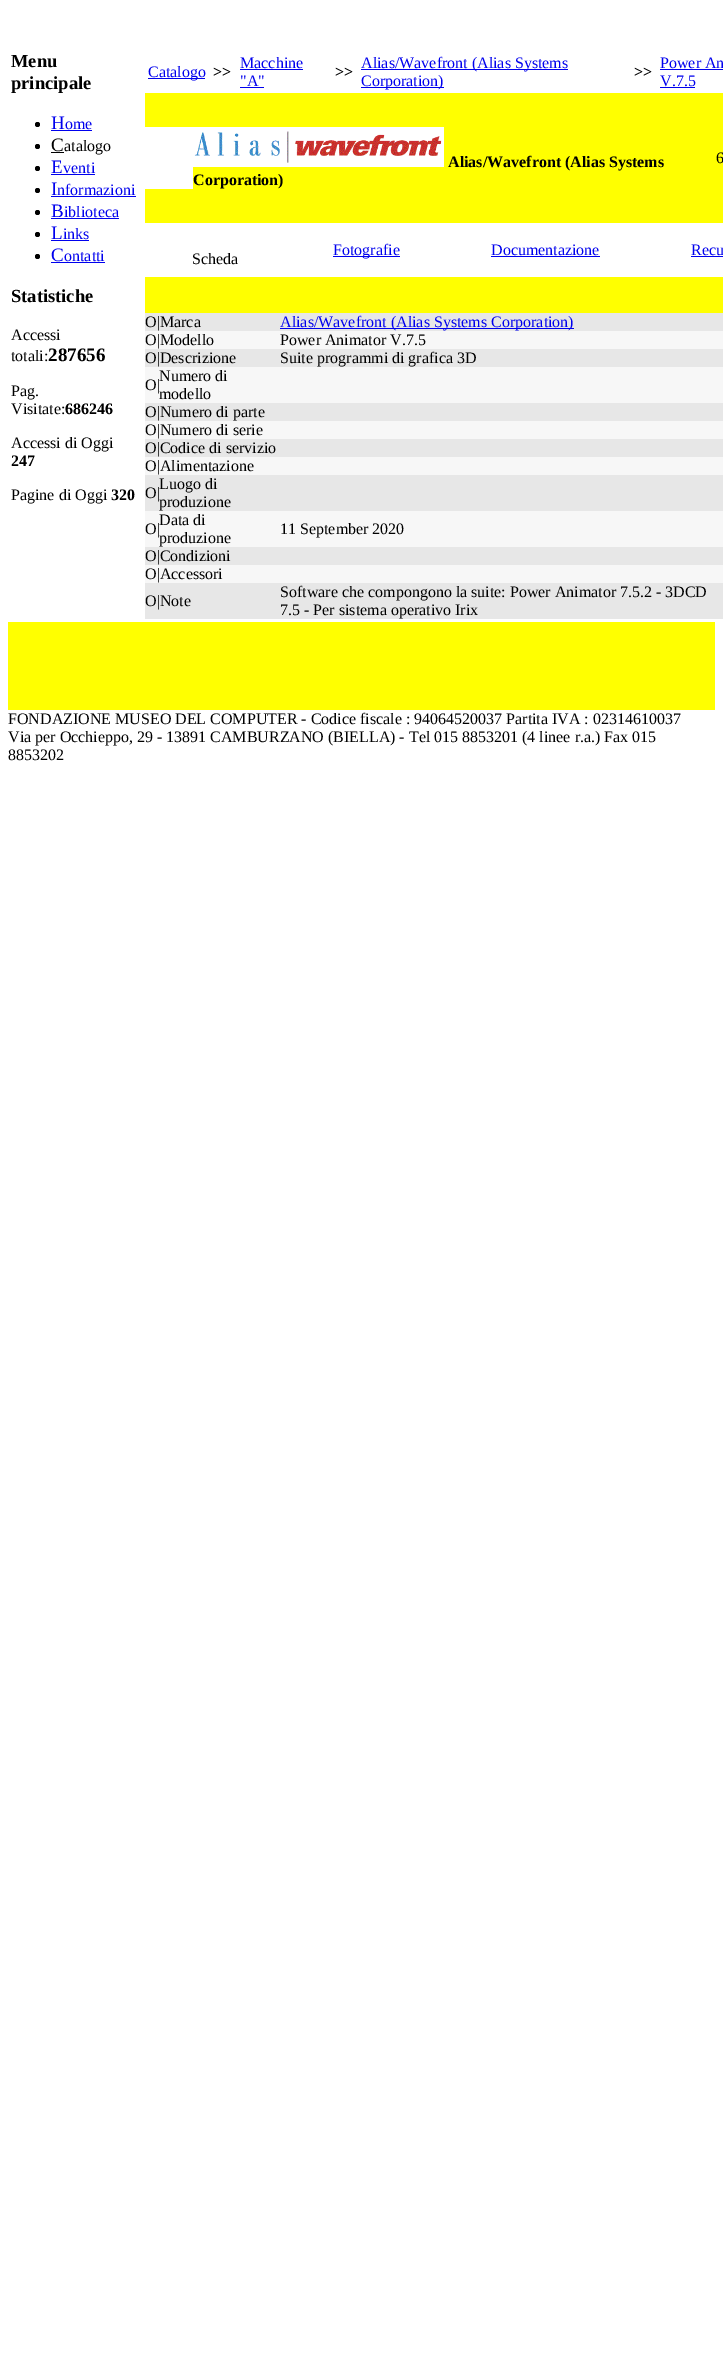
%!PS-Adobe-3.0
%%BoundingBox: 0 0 723 2372
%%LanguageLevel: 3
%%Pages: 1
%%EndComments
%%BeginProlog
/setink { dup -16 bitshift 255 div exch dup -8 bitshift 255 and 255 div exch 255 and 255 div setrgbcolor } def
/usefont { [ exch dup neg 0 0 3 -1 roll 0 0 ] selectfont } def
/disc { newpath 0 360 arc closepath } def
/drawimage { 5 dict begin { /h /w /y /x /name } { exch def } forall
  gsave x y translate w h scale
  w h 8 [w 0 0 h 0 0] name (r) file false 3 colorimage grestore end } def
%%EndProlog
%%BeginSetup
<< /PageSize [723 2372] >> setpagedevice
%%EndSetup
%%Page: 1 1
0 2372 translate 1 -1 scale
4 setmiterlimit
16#FFFFFF setink
0 0 723 2372 rectfill
/LiberationSerif-Bold 18.5 usefont
16#000000 setink
11 67 moveto (Menu) show
11 89 moveto (principale) show
37.5 124.5 2.5 disc fill
/LiberationSerif-Regular 19 usefont
16#0000EE setink
51 129 moveto (H) show
/LiberationSerif-Regular 16 usefont
65 129 moveto (ome) show
51 130 41 1 rectfill
16#000000 setink
37.5 146.5 2.5 disc fill
/LiberationSerif-Regular 19 usefont
51 151 moveto (C) show
51 152 13 1 rectfill
/LiberationSerif-Regular 16 usefont
64 151 moveto (atalogo) show
37.5 168.5 2.5 disc fill
/LiberationSerif-Regular 19 usefont
16#0000EE setink
51 173 moveto (E) show
/LiberationSerif-Regular 16 usefont
63 173 moveto (venti) show
51 174 44 1 rectfill
16#000000 setink
37.5 190.5 2.5 disc fill
/LiberationSerif-Regular 19 usefont
16#0000EE setink
51 195 moveto (I) show
/LiberationSerif-Regular 16 usefont
57 195 moveto (nformazioni) show
51 196 85 1 rectfill
16#000000 setink
37.5 212.5 2.5 disc fill
/LiberationSerif-Regular 19 usefont
16#0000EE setink
51 217 moveto (B) show
/LiberationSerif-Regular 16 usefont
64 217 moveto (iblioteca) show
51 218 68 1 rectfill
16#000000 setink
37.5 234.5 2.5 disc fill
/LiberationSerif-Regular 19 usefont
16#0000EE setink
51 239 moveto (L) show
/LiberationSerif-Regular 16 usefont
63 239 moveto (inks) show
51 240 38 1 rectfill
16#000000 setink
37.5 256.5 2.5 disc fill
/LiberationSerif-Regular 19 usefont
16#0000EE setink
51 261 moveto (C) show
/LiberationSerif-Regular 16 usefont
64 261 moveto (ontatti) show
51 262 54 1 rectfill
/LiberationSerif-Bold 18.5 usefont
16#000000 setink
11 302 moveto (Statistiche) show
/LiberationSerif-Regular 16 usefont
11 340 moveto (Accessi) show
11 361 moveto (totali:) show
/LiberationSerif-Bold 19 usefont
48 361 moveto (287656) show
/LiberationSerif-Regular 16 usefont
11 396 moveto (Pag.) show
11 414 moveto (Visitate:) show
/LiberationSerif-Bold 16 usefont
65 414 moveto (686246) show
/LiberationSerif-Regular 16 usefont
11 448 moveto (Accessi di Oggi) show
/LiberationSerif-Bold 16 usefont
11 466 moveto (247) show
/LiberationSerif-Regular 16 usefont
11 500 moveto (Pagine di Oggi) show
/LiberationSerif-Bold 16 usefont
111 500 moveto (320) show
16#0000EE setink
148 78 57 1 rectfill
/LiberationSerif-Regular 16 usefont
148 77 moveto (Catalogo) show
/LiberationSerif-Bold 16 usefont
16#000000 setink
213 77 moveto (>>) show
/LiberationSerif-Regular 16 usefont
16#0000EE setink
240 68 moveto (Macchine) show
240 69 63 1 rectfill
240 86 moveto ("A") show
240 87 24 1 rectfill
/LiberationSerif-Bold 16 usefont
16#000000 setink
335 77 moveto (>>) show
16#0000EE setink
361 69 207 1 rectfill
/LiberationSerif-Regular 16 usefont
361 68 moveto (Alias/Wavefront \(Alias Systems) show
361 87 83 1 rectfill
361 86 moveto (Corporation\)) show
/LiberationSerif-Bold 16 usefont
16#000000 setink
634 77 moveto (>>) show
/LiberationSerif-Regular 16 usefont
16#0000EE setink
660 68 moveto (Power An) show
660 69 63 1 rectfill
660 86 moveto (V.7.5) show
[
    [660 87 35 1 16#0000EE]
    [145 93 578 34 16#FFFF00]
    [193 127 530 62 16#FFFF00]
] { aload pop setink rectfill } forall
(img1.raw) 193 127 251 40 drawimage
/LiberationSerif-Bold 16 usefont
16#000000 setink
448 167 moveto (Alias/Wavefront \(Alias Systems) show
193 185 moveto (Corporation\)) show
/LiberationSerif-Regular 16 usefont
716 163 moveto (6) show
16#FFFF00 setink
145 189 578 34 rectfill
16#0000EE setink
333 256 67 1 rectfill
333 255 moveto (Fotografie) show
491 255 moveto (Documentazione) show
491 256 109 1 rectfill
691 255 moveto (Recu) show
691 256 32 1 rectfill
16#000000 setink
192 264 moveto (Scheda) show
16#FFFF00 setink
145 277 578 36 rectfill
16#E7E7E7 setink
145 313 578 18 rectfill
16#000000 setink
145 327 moveto (O|Marca) show
16#0000EE setink
280 328 294 1 rectfill
280 327 moveto (Alias/Wavefront \(Alias Systems Corporation\)) show
16#F7F7F7 setink
145 331 578 18 rectfill
16#000000 setink
145 345 moveto (O|Modello) show
280 345 moveto (Power Animator V.7.5) show
16#E7E7E7 setink
145 349 578 18 rectfill
16#000000 setink
145 363 moveto (O|Descrizione) show
280 363 moveto (Suite programmi di grafica 3D) show
16#F7F7F7 setink
145 367 578 36 rectfill
16#000000 setink
[
    [(O|) 145 390]
    [(Numero di) 159 381]
    [(modello) 159 399]
] { aload pop moveto show } forall
16#E7E7E7 setink
145 403 578 18 rectfill
16#000000 setink
145 417 moveto (O|Numero di parte) show
16#F7F7F7 setink
145 421 578 18 rectfill
16#000000 setink
145 435 moveto (O|Numero di serie) show
16#E7E7E7 setink
145 439 578 18 rectfill
16#000000 setink
145 453 moveto (O|Codice di servizio) show
16#F7F7F7 setink
145 457 578 18 rectfill
16#000000 setink
145 471 moveto (O|Alimentazione) show
16#E7E7E7 setink
145 475 578 36 rectfill
16#000000 setink
[
    [(O|) 145 498]
    [(Luogo di) 159 489]
    [(produzione) 159 507]
] { aload pop moveto show } forall
16#F7F7F7 setink
145 511 578 36 rectfill
16#000000 setink
[
    [(O|) 145 534]
    [(Data di) 159 525]
    [(produzione) 159 543]
    [(11 September 2020) 280 534]
] { aload pop moveto show } forall
16#E7E7E7 setink
145 547 578 18 rectfill
16#000000 setink
145 561 moveto (O|Condizioni) show
16#F7F7F7 setink
145 565 578 18 rectfill
16#000000 setink
145 579 moveto (O|Accessori) show
16#E7E7E7 setink
145 583 578 36 rectfill
16#000000 setink
[
    [(O|Note) 145 606]
    [(Software che compongono la suite: Power Animator 7.5.2 - 3DCD) 280 597]
    [(7.5 - Per sistema operativo Irix) 280 615]
] { aload pop moveto show } forall
16#FFFF00 setink
8 622 707 88 rectfill
16#000000 setink
[
    [(FONDAZIONE MUSEO DEL COMPUTER - Codice fiscale : 94064520037 Partita IVA : 02314610037) 8 724]
    [(Via per Occhieppo, 29 - 13891 CAMBURZANO \(BIELLA\) - Tel 015 8853201 \(4 linee r.a.\) Fax 015) 8 742]
    [(8853202) 8 760]
] { aload pop moveto show } forall
showpage
%%EOF
